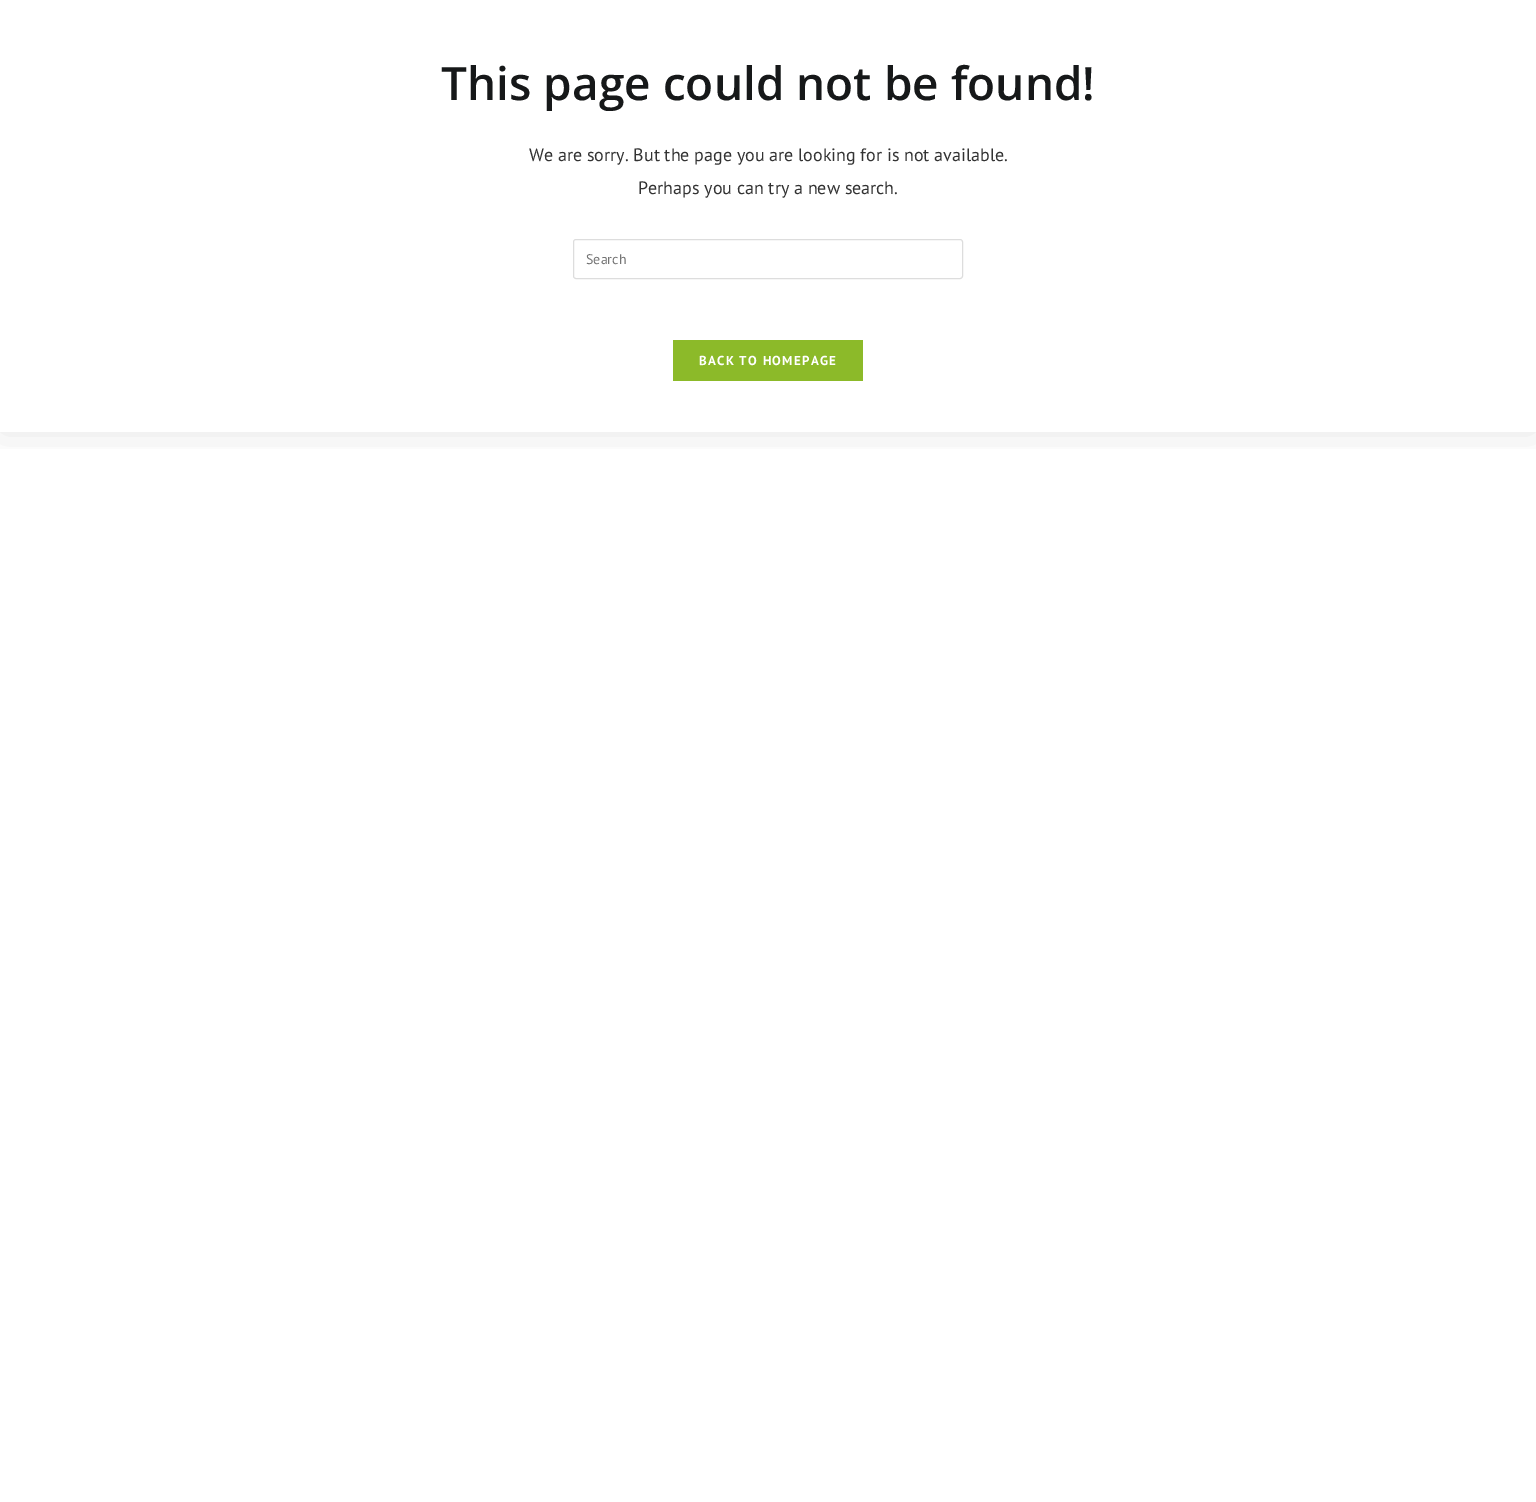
%!PS-Adobe-3.0
%%BoundingBox: 0 0 1536 1502
%%LanguageLevel: 3
%%Pages: 1
%%EndComments
%%BeginProlog
/setink { dup -16 bitshift 255 div exch dup -8 bitshift 255 and 255 div exch 255 and 255 div setrgbcolor } def
/usefont { [ exch dup neg 0 0 3 -1 roll 0 0 ] selectfont } def
/setalpha { dup .setfillconstantalpha .setstrokeconstantalpha } def
/rrect { 5 dict begin { /r /h /w /y /x } { exch def } forall
  x r add y moveto x w add y 2 copy h add r arct x w add y h add x 1 index r arct
  x y h add x y r arct x y 2 copy exch w add exch r arct closepath end } def
/softshadow { 12 dict begin { /a /b /q /h /w /y /x } { exch def } forall gsave /was 0 def
  9 -2 -9 { dup b mul 4 div /e exch def 1 sub .425 mul 2.718 exch exp 1 add a .99 .min exch div /now exch def
    1 1 now sub 1 was sub div sub setalpha /was now def
    w h .min e 2 mul add 0 gt { x e sub y e sub w e 2 mul add h e 2 mul add
      q e add b .6 mul add w h .min 2 div e add .min 0 .max rrect fill } if } for grestore end } def
%%EndProlog
%%BeginSetup
<< /PageSize [1536 1502] /PageUsesTransparency true >> setpagedevice
%%EndSetup
%%Page: 1 1
0 .pushpdf14devicefilter
0 1502 translate 1 -1 scale
4 setmiterlimit
16#FFFFFF setink
0 0 1536 1502 rectfill
gsave
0 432 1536 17 rectclip
16#000000 setink
0 0 1536 432 0 20 0.1 softshadow
grestore
/OpenSans-SemiBold 46 usefont
16#161819 setink
441 100 moveto (This page could not be found!) show
/PTSans-Regular 18 usefont
16#333333 setink
529 161 moveto (We are sorry. But the page you are looking for is not available.) show
638 194 moveto (Perhaps you can try a new search.) show
16#DDDDDD setink
573.5 239.5 389 39 2.5 rrect stroke
/PTSans-Regular 14 usefont
16#757575 setink
586 264 moveto (Search) show
16#8CBA29 setink
673 340 190 41 rectfill
/PTSans-Bold 13 usefont
16#FFFFFF setink
699 365 moveto 1.25 0 (BACK TO HOMEPAGE) ashow
.poppdf14devicefilter showpage
%%EOF
